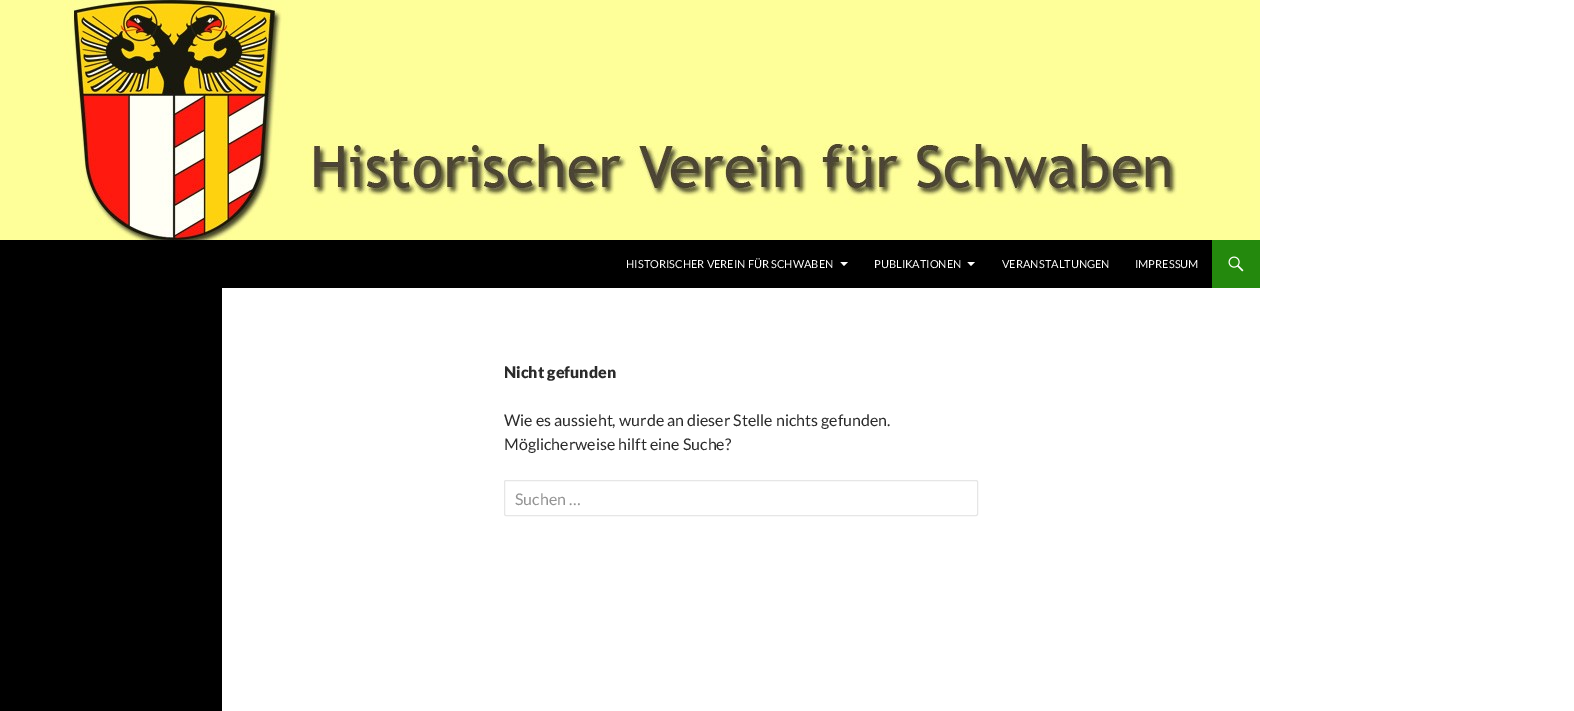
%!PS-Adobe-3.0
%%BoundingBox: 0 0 1574 711
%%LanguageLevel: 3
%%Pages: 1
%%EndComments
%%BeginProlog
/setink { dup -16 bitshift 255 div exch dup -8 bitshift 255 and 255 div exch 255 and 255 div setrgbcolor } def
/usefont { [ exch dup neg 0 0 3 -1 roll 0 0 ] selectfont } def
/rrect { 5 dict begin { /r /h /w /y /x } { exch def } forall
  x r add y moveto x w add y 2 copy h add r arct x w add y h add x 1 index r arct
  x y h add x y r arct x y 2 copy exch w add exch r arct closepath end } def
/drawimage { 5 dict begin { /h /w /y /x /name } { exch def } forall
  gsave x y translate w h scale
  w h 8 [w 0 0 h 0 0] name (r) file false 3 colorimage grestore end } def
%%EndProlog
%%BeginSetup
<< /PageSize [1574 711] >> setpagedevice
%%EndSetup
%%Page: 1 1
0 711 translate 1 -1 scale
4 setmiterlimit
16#FFFFFF setink
0 0 1574 711 rectfill
(img1.raw) 0 0 1260 240 drawimage
16#000000 setink
0 240 1212 48 rectfill
/Lato-Regular 11 usefont
16#FFFFFF setink
626 268 moveto (HISTORISCHER VEREIN FÜR SCHWABEN) show
840.5 262 moveto 844 266 lineto 848 262 lineto closepath fill
874 268 moveto (PUBLIKATIONEN) show
967.5 262 moveto 971 266 lineto 975 262 lineto closepath fill
1002 268 moveto (VERANSTALTUNGEN) show
1135 268 moveto (IMPRESSUM) show
16#24890D setink
1212 240 48 48 rectfill
(img2.raw) 1228 256 16 16 drawimage
16#000000 setink
0 288 222 423 rectfill
/Lato-Black 16 usefont
16#2B2B2B setink
504 378 moveto (Nicht gefunden) show
/Lato-Regular 16 usefont
504 426 moveto (Wie es aussieht, wurde an dieser Stelle nichts gefunden.) show
504 450 moveto (Möglicherweise hilft eine Suche?) show
16#E6E6E6 setink
504.5 480.5 473 35 1.5 rrect stroke
16#939393 setink
515 505 moveto (Suchen …) show
showpage
%%EOF
